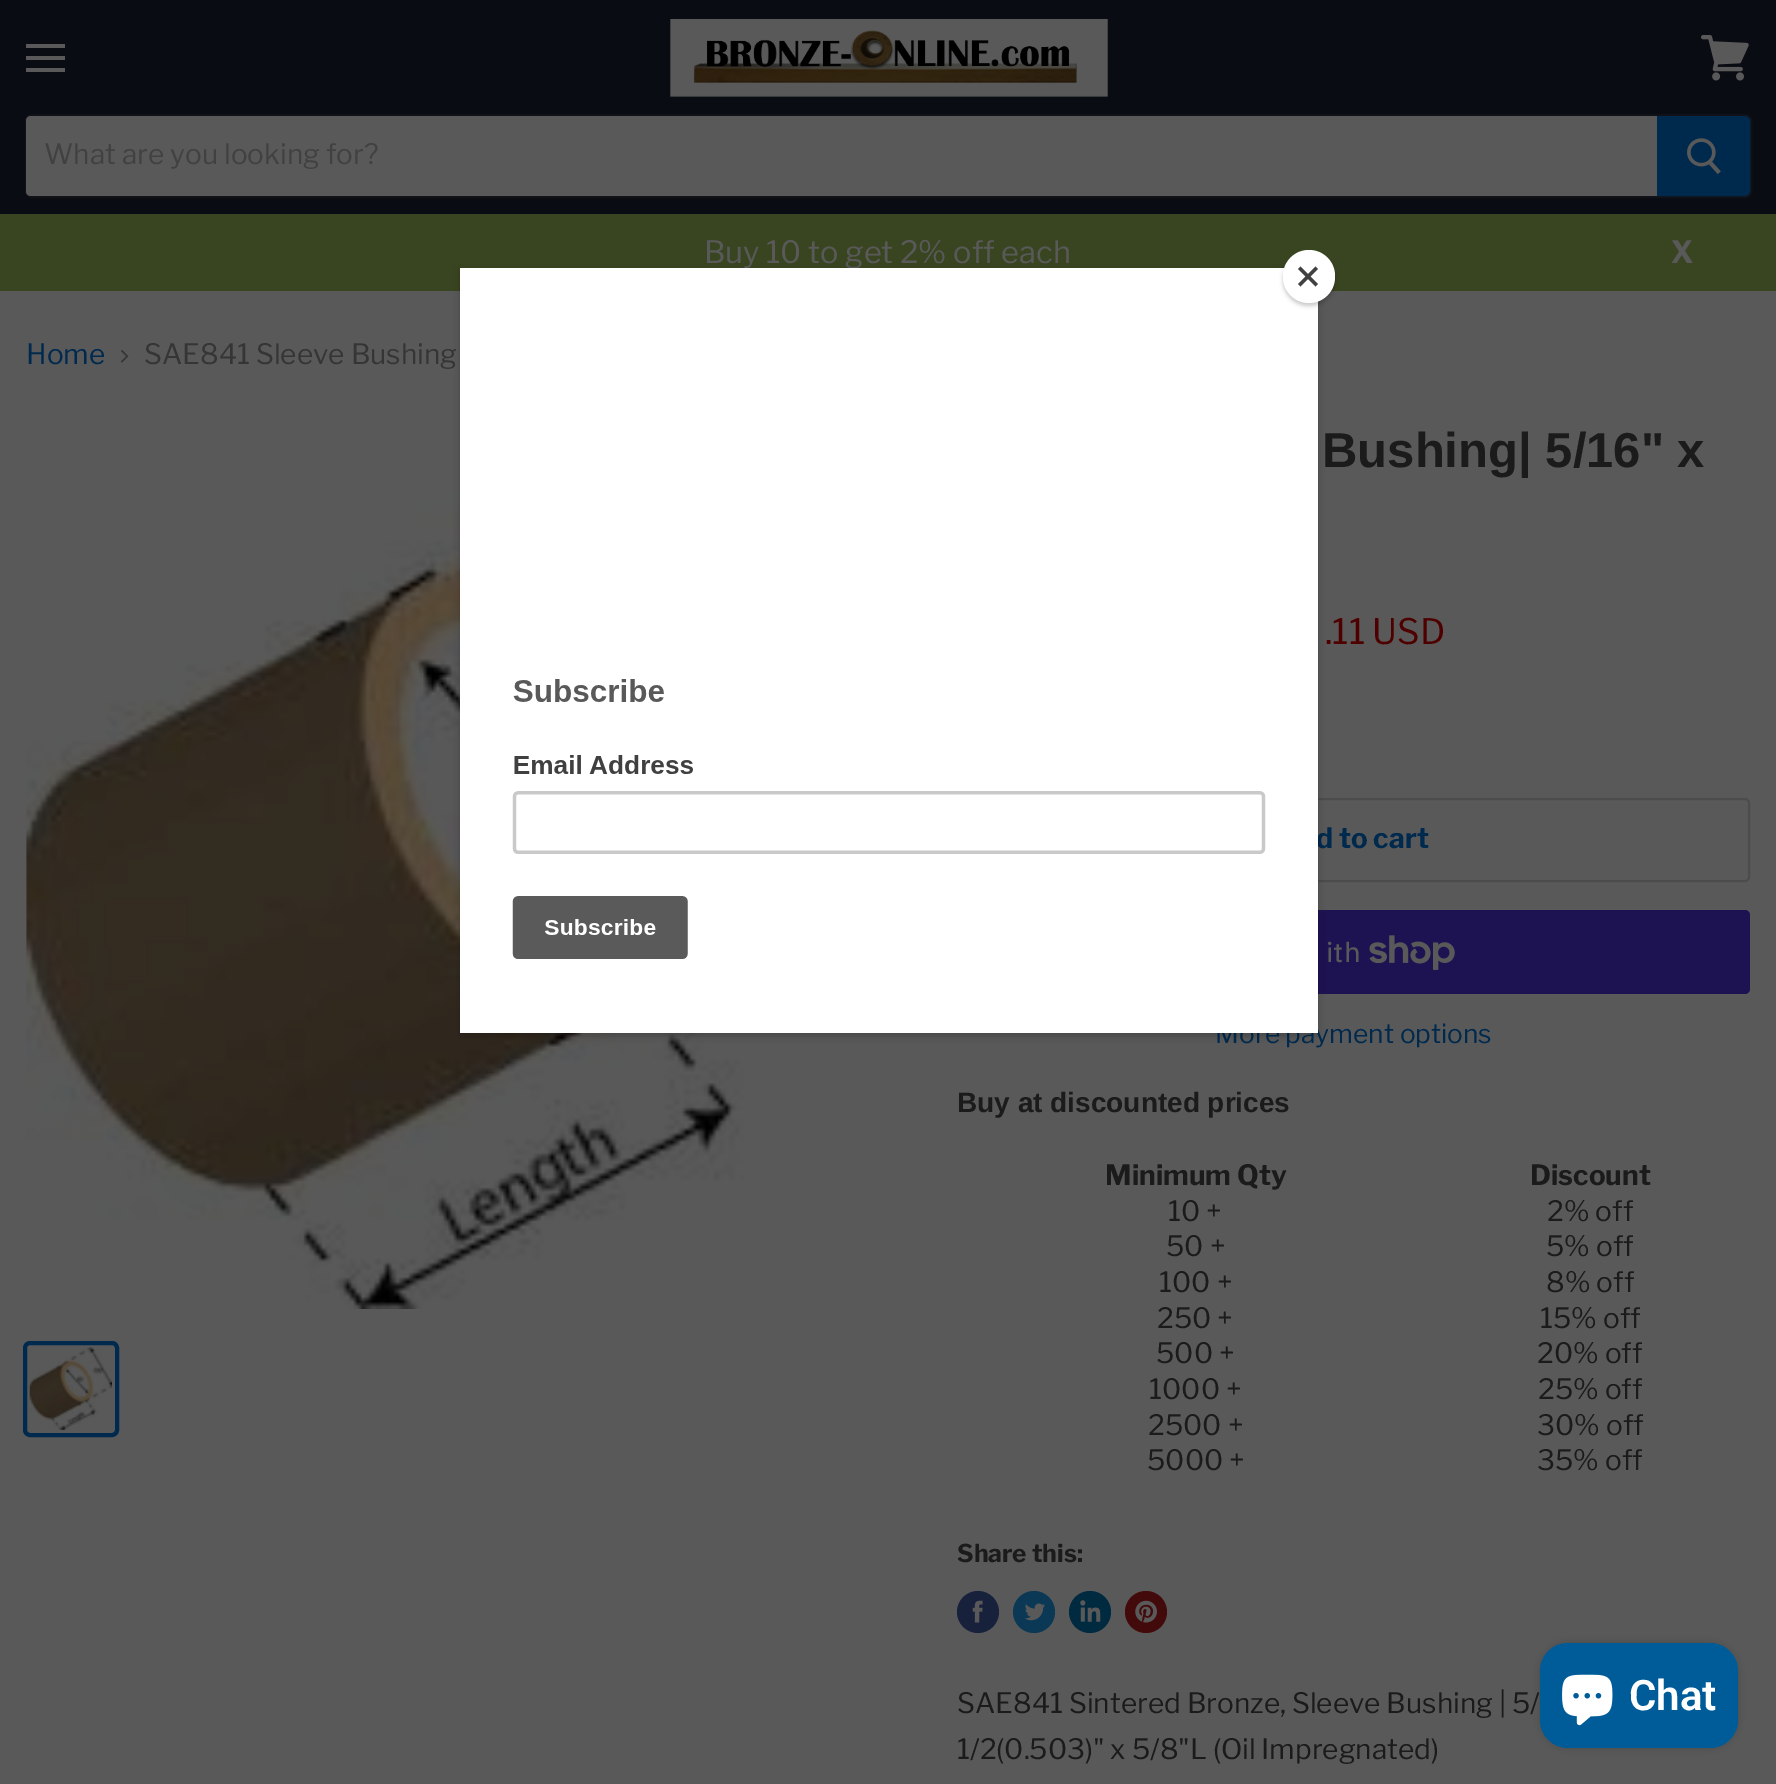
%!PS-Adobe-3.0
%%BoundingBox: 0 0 1776 1784
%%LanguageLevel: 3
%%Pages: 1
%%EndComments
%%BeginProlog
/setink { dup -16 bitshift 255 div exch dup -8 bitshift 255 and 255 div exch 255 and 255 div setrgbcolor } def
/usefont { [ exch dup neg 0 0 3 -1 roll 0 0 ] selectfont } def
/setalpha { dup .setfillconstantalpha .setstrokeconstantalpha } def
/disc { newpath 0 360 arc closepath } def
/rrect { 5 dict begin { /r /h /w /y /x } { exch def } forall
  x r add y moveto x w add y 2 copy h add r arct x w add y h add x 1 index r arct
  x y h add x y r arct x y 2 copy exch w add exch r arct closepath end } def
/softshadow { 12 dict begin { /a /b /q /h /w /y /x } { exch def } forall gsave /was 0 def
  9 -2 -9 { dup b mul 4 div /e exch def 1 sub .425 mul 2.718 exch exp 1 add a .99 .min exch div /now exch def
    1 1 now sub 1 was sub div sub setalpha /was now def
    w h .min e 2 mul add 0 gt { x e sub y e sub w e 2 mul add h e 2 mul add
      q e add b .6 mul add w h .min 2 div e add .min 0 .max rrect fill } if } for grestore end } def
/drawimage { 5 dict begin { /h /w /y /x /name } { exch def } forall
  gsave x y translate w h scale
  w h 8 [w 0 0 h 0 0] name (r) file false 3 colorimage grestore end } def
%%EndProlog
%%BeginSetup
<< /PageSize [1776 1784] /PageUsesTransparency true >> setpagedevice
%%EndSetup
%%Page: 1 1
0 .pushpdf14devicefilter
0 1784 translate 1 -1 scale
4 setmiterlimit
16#595959 setink
0 0 1776 1784 rectfill
[
    [0 0 1776 214 16#0A0C13]
    [26 44 39 4 16#595959]
    [26 56 39 4 16#595959]
    [26 68 39 4 16#595959]
] { aload pop setink rectfill } forall
(img1.raw) 1701 35 48 46 drawimage
(img2.raw) 670 19 438 78 drawimage
0.2 setalpha
16#2C2C2C setink
2 setlinewidth
26 115 1725 82 6 rrect stroke
1 setalpha
16#595959 setink
31 116 moveto 1657 116 lineto 1657 196 lineto 31 196 lineto 28 196 26 194 26 191 curveto 26 121 lineto 26 118 28 116 31 116 curveto closepath fill
/LibreFranklin-Regular 28 usefont
16#404141 setink
44 164 moveto (What are you looking for?) show
16#00294E setink
1658 117 moveto 1745 117 lineto 1747 117 1749 119 1749 121 curveto 1749 191 lineto 1749 193 1747 195 1745 195 curveto 1658 195 lineto closepath gsave fill grestore
stroke
(img3.raw) 1687 138 34 37 drawimage
16#384520 setink
0 214 1776 77 rectfill
/LibreFranklin-Regular 30.75 usefont
16#595959 setink
704 263 moveto (Buy 10 to get 2% off each) show
/LibreFranklin-Bold 30.75 usefont
1671 263 moveto (X) show
/LibreFranklin-Regular 28 usefont
16#00294E setink
26 364 moveto (Home) show
(img4.raw) 120 349 9 14 drawimage
16#343535 setink
144 364 moveto (SAE841 Sleeve Bushing) show
(img5.raw) 26 422 888 887 drawimage
16#00294E setink
4 setlinewidth
25 1343 92 92 5 rrect stroke
(img6.raw) 29 1347 83 83 drawimage
/Arimo-Bold 49 usefont
16#1B1B1B setink
1322 467 moveto (Bushing| 5/16" x) show
/LibreFranklin-Regular 35 usefont
16#4E0000 setink
1325 644 moveto (.11 USD) show
16#4C4C4C setink
2 setlinewidth
958 799 791 82 4 rrect stroke
/LibreFranklin-Bold 28 usefont
16#00294E setink
1316 848 moveto (d to cart) show
16#1D1252 setink
957 910 793 84 5 rrect fill
/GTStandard-Regular 28 usefont
16#595959 setink
1326 962 moveto (ith) show
(img7.raw) 1369 935 86 35 drawimage
/LibreFranklin-Regular 26.25 usefont
16#00294E setink
1215 1043 moveto (More payment options) show
/Arimo-Bold 28 usefont
16#1B1B1B setink
957 1112 moveto (Buy at discounted prices) show
/LibreFranklin-Bold 28 usefont
1105 1185 moveto (Minimum Qty) show
1530 1185 moveto (Discount) show
/LibreFranklin-Regular 28 usefont
[
    [(10 +) 1168 1221]
    [(2% off) 1547 1221]
    [(50 +) 1166 1256]
    [(5% off) 1546 1256]
    [(100 +) 1159 1292]
    [(8% off) 1546 1292]
    [(250 +) 1157 1328]
    [(15% off) 1540 1328]
    [(500 +) 1156 1363]
    [(20% off) 1537 1363]
    [(1000 +) 1149 1399]
    [(25% off) 1538 1399]
    [(2500 +) 1148 1435]
    [(30% off) 1537 1435]
    [(5000 +) 1147 1470]
    [(35% off) 1537 1470]
] { aload pop moveto show } forall
/LibreFranklin-Bold 24.5 usefont
957 1562 moveto (Share this:) show
16#17213C setink
978 1612 21 disc fill
(img8.raw) 972 1600 11 23 drawimage
16#0A3855 setink
1034 1612 21 disc fill
(img9.raw) 1024 1603 22 18 drawimage
16#002A3F setink
1090 1612 21 disc fill
(img10.raw) 1080 1600 21 22 drawimage
16#420A0A setink
1146 1612 21 disc fill
(img11.raw) 1135 1600 22 23 drawimage
/LibreFranklin-Regular 28 usefont
16#1B1B1B setink
957 1713 moveto (SAE841 Sintered Bronze, Sleeve Bushing | 5/) show
957 1759 moveto (1/2\(0.503\)" x 5/8"L \(Oil Impregnated\)) show
16#000000 setink
460 271 858 765 0 3.5 0.2 softshadow
(img12.raw) 460 268 858 765 drawimage
1283 254 52 52 26 2 0.2 softshadow
16#FFFFFF setink
1283 250 52 53 26 rrect fill
16#414141 setink
1315.5 266.5 moveto 1318 269 lineto 1300.5 286.5 lineto 1298 284 lineto closepath fill
1298 269 moveto 1300.5 266.5 lineto 1318 284 lineto 1315.5 286.5 lineto closepath fill
16#000000 setink
1540 1643 198 105 28 4.5 0.15 softshadow
16#005C99 setink
1540 1643 198 105 28 rrect fill
(img13.raw) 1562 1674 51 52 drawimage
/Roboto-SemiBold 42 usefont
16#FFFFFF setink
1629 1710 moveto (Chat) show
.poppdf14devicefilter showpage
%%EOF
